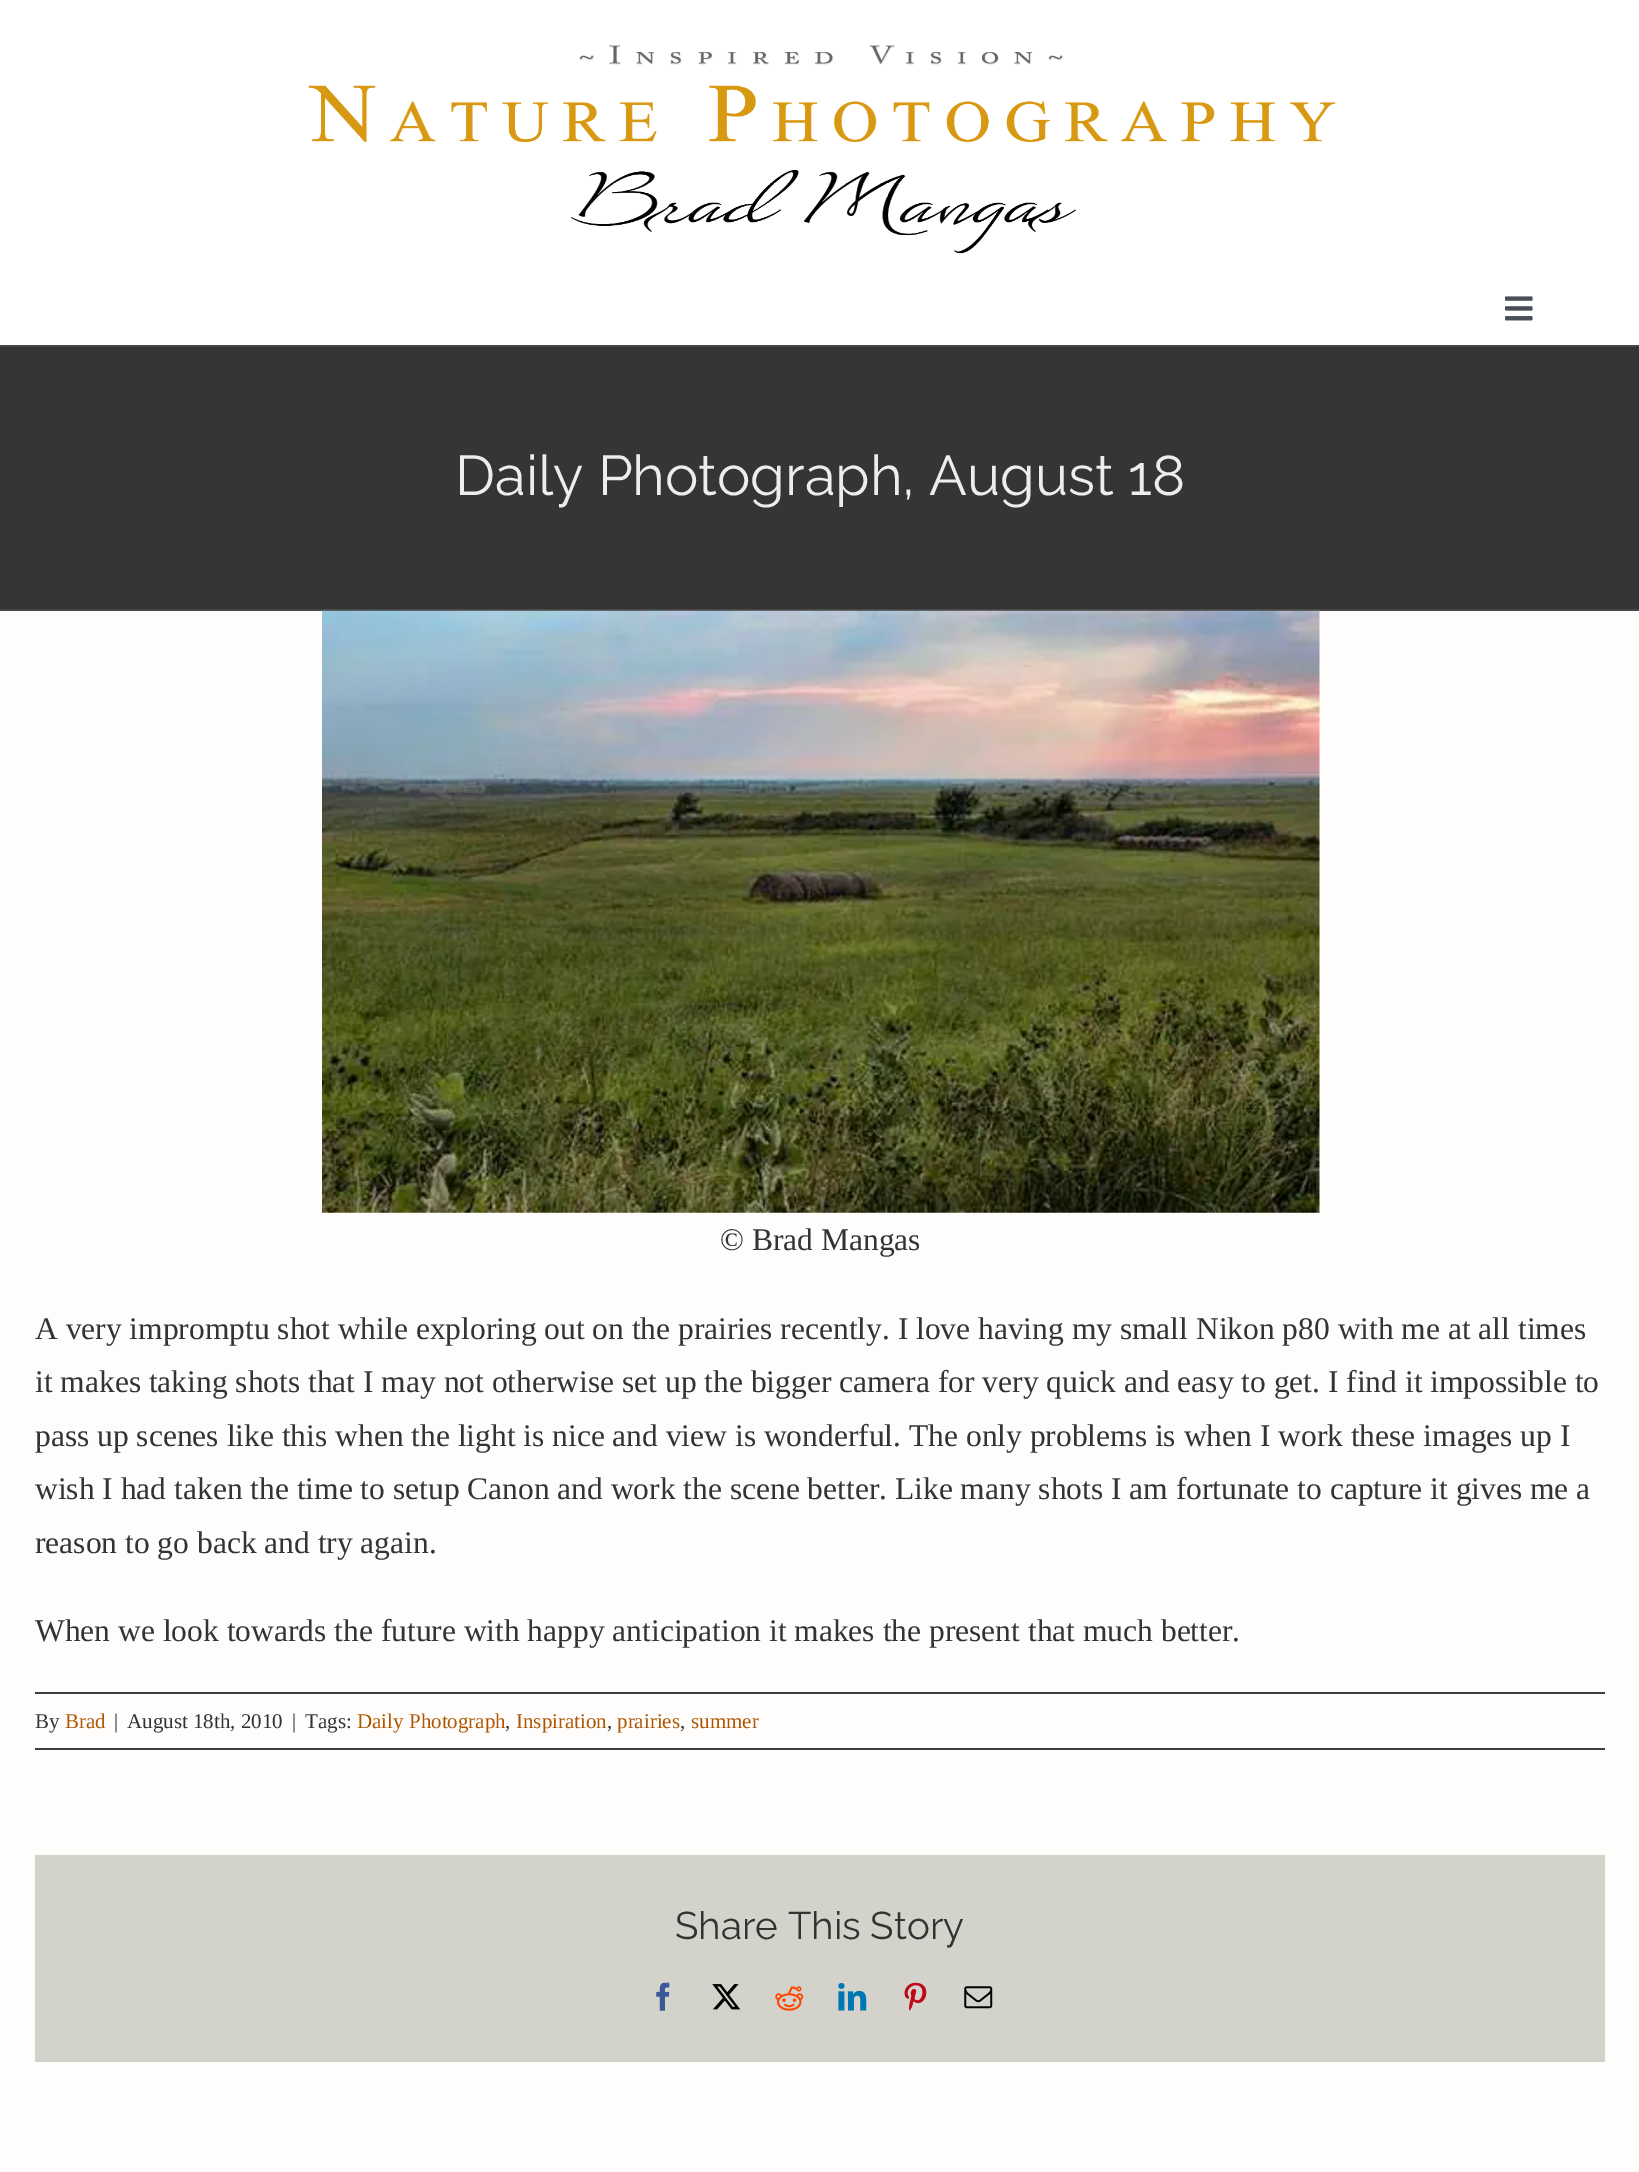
%!PS-Adobe-3.0
%%BoundingBox: 0 0 1639 2172
%%LanguageLevel: 3
%%Pages: 1
%%EndComments
%%BeginProlog
/setink { dup -16 bitshift 255 div exch dup -8 bitshift 255 and 255 div exch 255 and 255 div setrgbcolor } def
/usefont { [ exch dup neg 0 0 3 -1 roll 0 0 ] selectfont } def
/drawimage { 5 dict begin { /h /w /y /x /name } { exch def } forall
  gsave x y translate w h scale
  w h 8 [w 0 0 h 0 0] name (r) file false 3 colorimage grestore end } def
%%EndProlog
%%BeginSetup
<< /PageSize [1639 2172] >> setpagedevice
%%EndSetup
%%Page: 1 1
0 2172 translate 1 -1 scale
4 setmiterlimit
16#FFFCFC setink
0 0 1639 2172 rectfill
16#FFFFFF setink
0 0 1639 345 rectfill
(img1.raw) 308 45 1028 209 drawimage
(img2.raw) 1505 296 28 25 drawimage
[
    [0 347 1639 262 16#353535]
    [0 345 1639 2 16#464646]
    [0 609 1639 2 16#464646]
] { aload pop setink rectfill } forall
/Raleway-Thin 56 usefont
16#EFECEA setink
455 495 moveto (Daily Photograph, August 18) show
(img3.raw) 322 610 998 603 drawimage
/LiberationSerif-Regular 31.5 usefont
16#333333 setink
[
    [(© Brad Mangas) 720 1250]
    [(A very impromptu shot while exploring out on the prairies recently. I love having my small Nikon p80 with me at all times) 35 1339]
    [(it makes taking shots that I may not otherwise set up the bigger camera for very quick and easy to get. I find it impossible to) 35 1392]
    [(pass up scenes like this when the light is nice and view is wonderful. The only problems is when I work these images up I) 35 1446]
    [(wish I had taken the time to setup Canon and work the scene better. Like many shots I am fortunate to capture it gives me a) 35 1499]
    [(reason to go back and try again.) 35 1553]
    [(When we look towards the future with happy anticipation it makes the present that much better.) 35 1641]
] { aload pop moveto show } forall
16#3E3E3E setink
35 1692 1570 2 rectfill
35 1748 1570 2 rectfill
/LiberationSerif-Regular 21 usefont
16#333333 setink
35 1728 moveto (By) show
16#AD5600 setink
65 1728 moveto (Brad) show
16#333333 setink
[
    [(|) 114 1728]
    [(August 18th, 2010) 127 1728]
    [(|) 292 1728]
    [(Tags:) 305 1728]
] { aload pop moveto show } forall
16#AD5600 setink
357 1728 moveto (Daily Photograph) show
16#333333 setink
505 1728 moveto (,) show
16#AD5600 setink
516 1728 moveto (Inspiration) show
16#333333 setink
607 1728 moveto (,) show
16#AD5600 setink
617 1728 moveto (prairies) show
16#333333 setink
680 1728 moveto (,) show
16#AD5600 setink
691 1728 moveto (summer) show
16#D3D3CB setink
35 1855 1570 207 rectfill
/Raleway-Thin 38.5 usefont
16#333333 setink
675 1939 moveto (Share This Story) show
(img4.raw) 656 1982 14 29 drawimage
(img5.raw) 712 1984 29 26 drawimage
(img6.raw) 775 1986 29 25 drawimage
(img7.raw) 838 1983 29 28 drawimage
(img8.raw) 904 1982 23 29 drawimage
(img9.raw) 964 1986 29 23 drawimage
showpage
%%EOF
